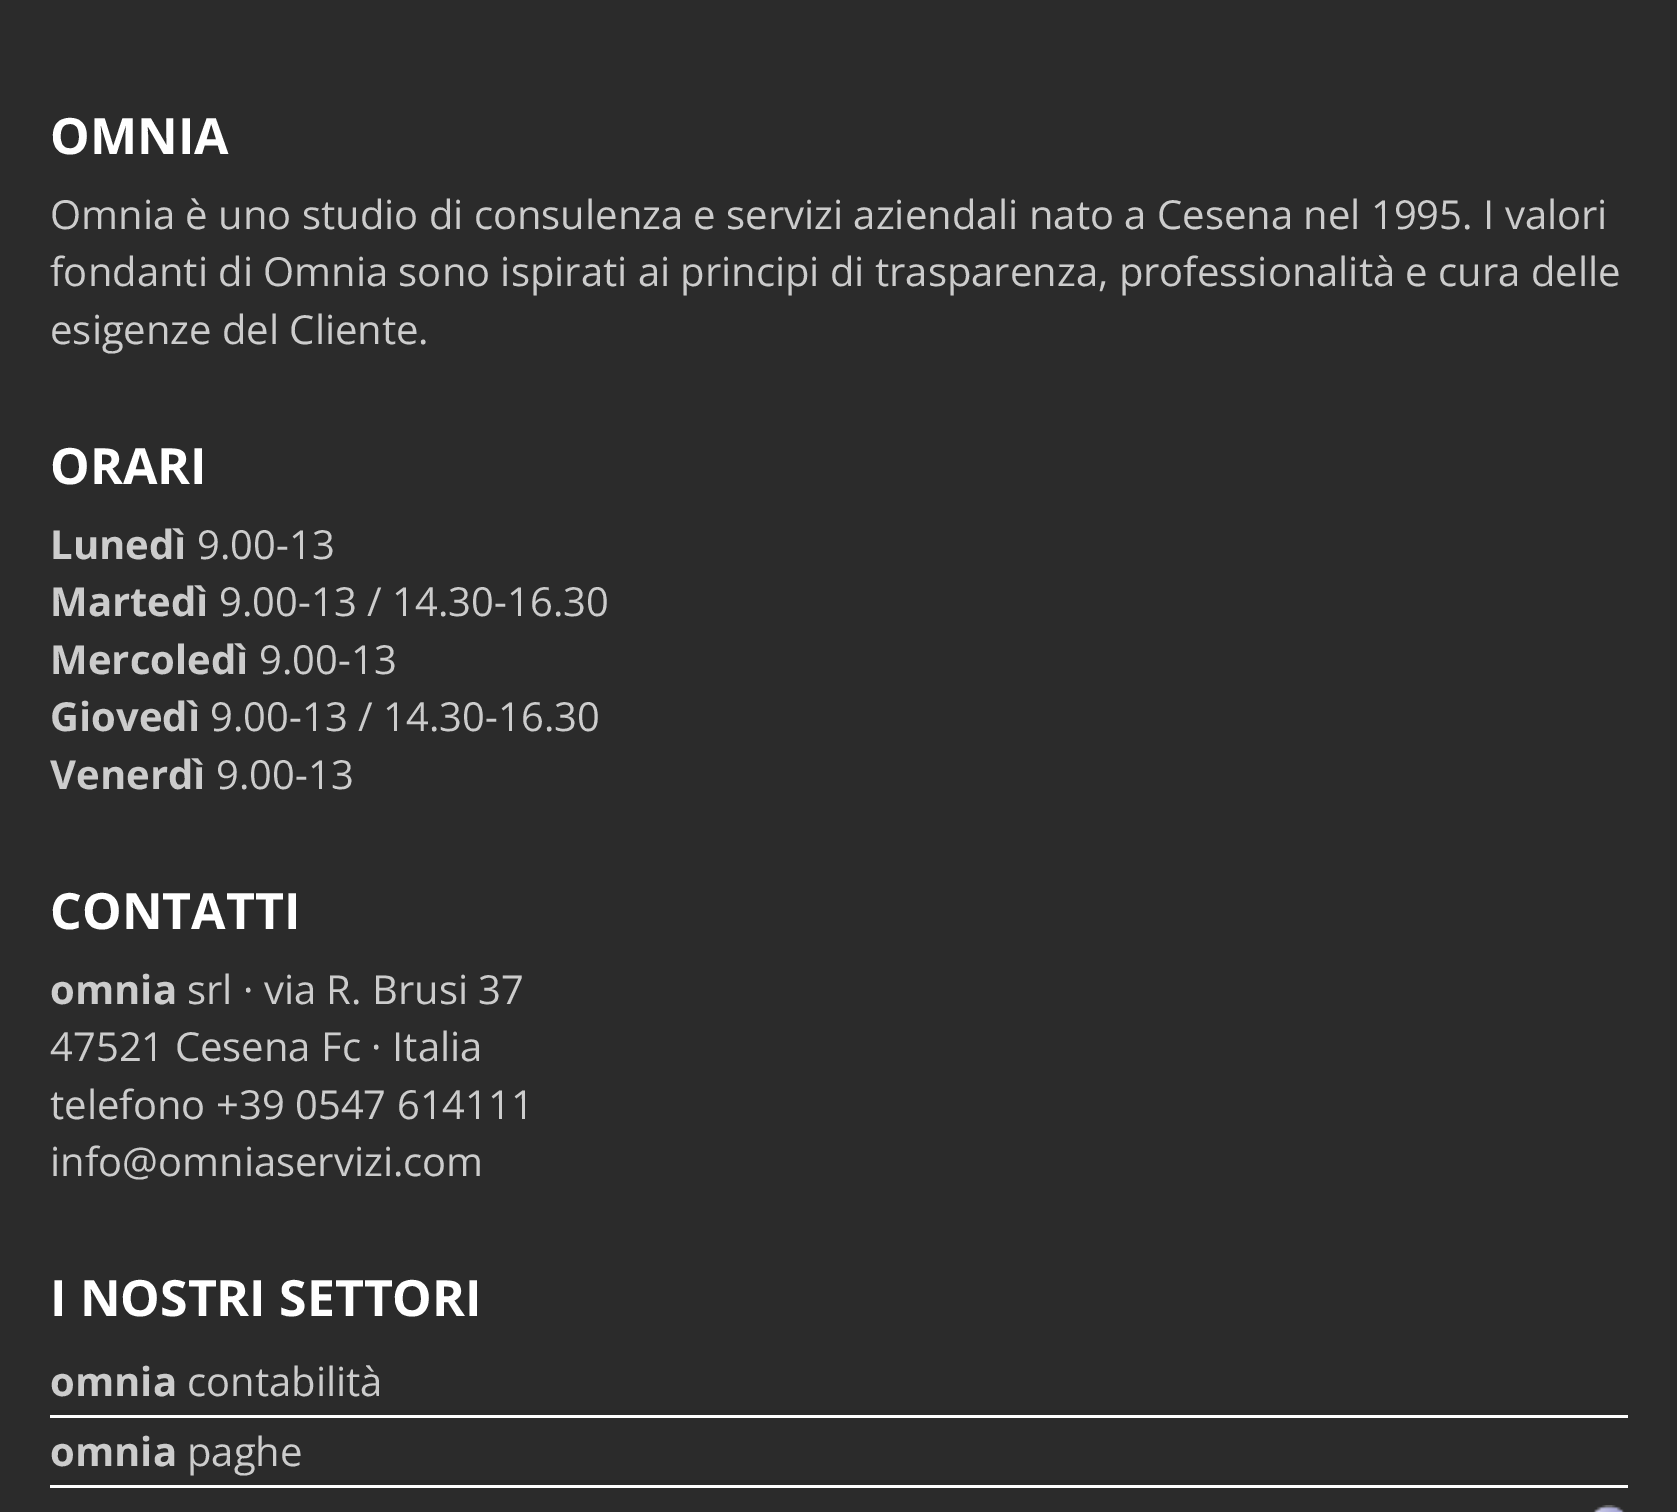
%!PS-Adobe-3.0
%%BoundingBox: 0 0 1677 1512
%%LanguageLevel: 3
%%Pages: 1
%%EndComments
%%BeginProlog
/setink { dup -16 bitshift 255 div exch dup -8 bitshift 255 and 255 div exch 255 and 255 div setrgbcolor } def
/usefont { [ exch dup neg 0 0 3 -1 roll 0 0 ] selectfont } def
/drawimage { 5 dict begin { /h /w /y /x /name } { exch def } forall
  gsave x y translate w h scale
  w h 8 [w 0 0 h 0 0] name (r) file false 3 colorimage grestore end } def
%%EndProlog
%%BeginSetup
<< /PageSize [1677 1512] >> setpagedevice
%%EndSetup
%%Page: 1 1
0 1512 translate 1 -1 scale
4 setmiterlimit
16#2B2B2B setink
0 0 1677 1512 rectfill
/OpenSans-Bold 50 usefont
16#FFFFFF setink
50 154 moveto (OMNIA) show
/OpenSans-Regular 40 usefont
16#CCCCCC setink
[
    [(Omnia è uno studio di consulenza e servizi aziendali nato a Cesena nel 1995. I valori) 50 229]
    [(fondanti di Omnia sono ispirati ai principi di trasparenza, professionalità e cura delle) 50 286]
    [(esigenze del Cliente.) 50 344]
] { aload pop moveto show } forall
/OpenSans-Bold 50 usefont
16#FFFFFF setink
50 484 moveto (ORARI) show
/OpenSans-Bold 40 usefont
16#CCCCCC setink
50 559 moveto (Lunedì) show
/OpenSans-Regular 40 usefont
197 559 moveto (9.00-13) show
/OpenSans-Bold 40 usefont
50 616 moveto (Martedì) show
/OpenSans-Regular 40 usefont
219 616 moveto (9.00-13 / 14.30-16.30) show
/OpenSans-Bold 40 usefont
50 674 moveto (Mercoledì) show
/OpenSans-Regular 40 usefont
259 674 moveto (9.00-13) show
/OpenSans-Bold 40 usefont
50 731 moveto (Giovedì) show
/OpenSans-Regular 40 usefont
210 731 moveto (9.00-13 / 14.30-16.30) show
/OpenSans-Bold 40 usefont
50 789 moveto (Venerdì) show
/OpenSans-Regular 40 usefont
216 789 moveto (9.00-13) show
/OpenSans-Bold 50 usefont
16#FFFFFF setink
50 929 moveto (CONTATTI) show
/OpenSans-Bold 40 usefont
16#CCCCCC setink
50 1004 moveto (omnia) show
/OpenSans-Regular 40 usefont
[
    [(srl · via R. Brusi 37) 187 1004]
    [(47521 Cesena Fc · Italia) 50 1061]
    [(telefono +39 0547 614111) 50 1119]
    [(info@omniaservizi.com) 50 1176]
] { aload pop moveto show } forall
/OpenSans-Bold 50 usefont
16#FFFFFF setink
50 1316 moveto (I NOSTRI SETTORI) show
50 1415 1578 3 rectfill
/OpenSans-Bold 40 usefont
16#CCCCCC setink
50 1396 moveto (omnia) show
/OpenSans-Regular 40 usefont
187 1396 moveto (contabilità) show
16#FFFFFF setink
50 1485 1578 3 rectfill
/OpenSans-Bold 40 usefont
16#CCCCCC setink
50 1466 moveto (omnia) show
/OpenSans-Regular 40 usefont
187 1466 moveto (paghe) show
(img1.raw) 1593 1505 32 7 drawimage
showpage
%%EOF
